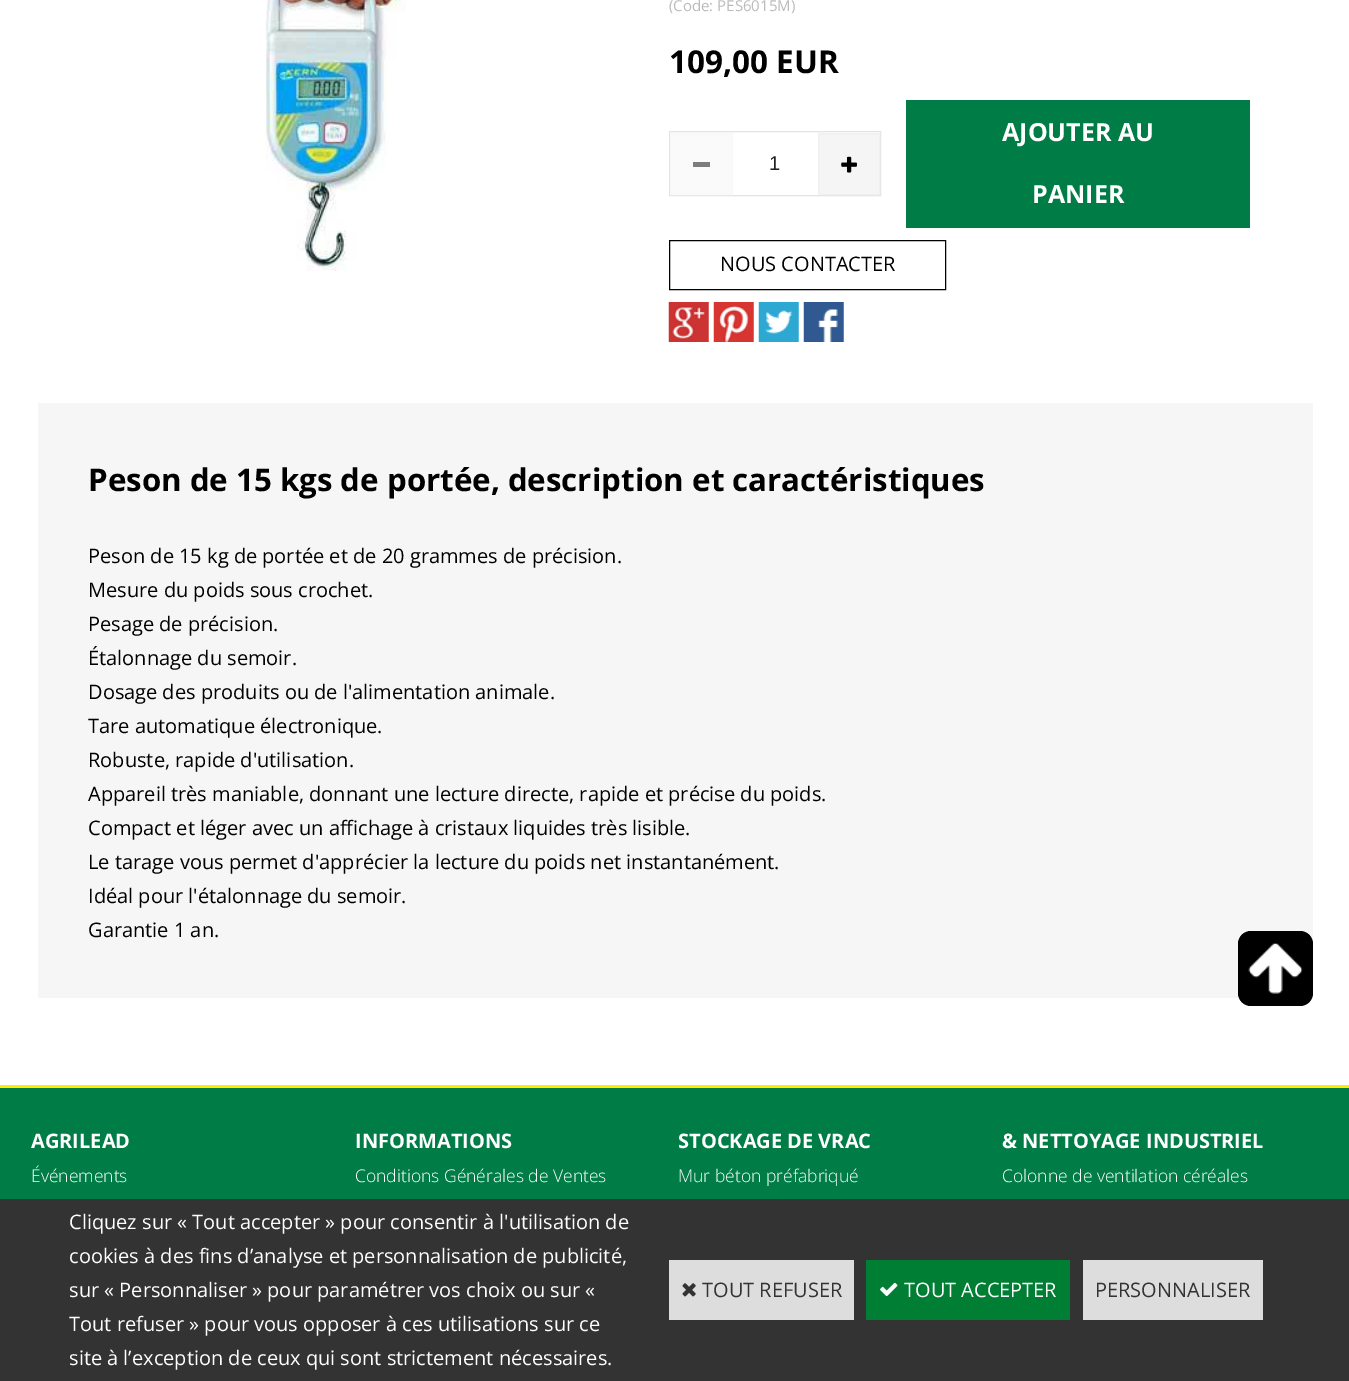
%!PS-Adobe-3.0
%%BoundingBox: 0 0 1349 1381
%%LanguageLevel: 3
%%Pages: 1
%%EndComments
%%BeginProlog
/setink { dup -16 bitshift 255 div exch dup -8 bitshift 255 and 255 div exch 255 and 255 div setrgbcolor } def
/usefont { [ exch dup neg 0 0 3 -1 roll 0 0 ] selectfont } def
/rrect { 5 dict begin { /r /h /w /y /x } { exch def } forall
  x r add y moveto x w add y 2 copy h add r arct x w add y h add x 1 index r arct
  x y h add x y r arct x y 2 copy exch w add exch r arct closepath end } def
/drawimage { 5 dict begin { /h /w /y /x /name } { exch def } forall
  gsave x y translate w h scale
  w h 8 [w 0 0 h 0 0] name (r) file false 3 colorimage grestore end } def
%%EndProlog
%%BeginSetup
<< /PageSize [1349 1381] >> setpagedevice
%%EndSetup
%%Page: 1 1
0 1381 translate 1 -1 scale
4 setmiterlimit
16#FFFFFF setink
0 0 1349 1381 rectfill
(img1.raw) 265 0 141 271 drawimage
/OpenSans-Regular 15 usefont
16#BBBBBB setink
669 11 moveto (\(Code: PES6015M\)) show
/OpenSans-Bold 31.5 usefont
16#000000 setink
669 73 moveto (109,00 EUR) show
16#E3E3E3 setink
669.5 131.5 211 64 rectstroke
16#FAFAFA setink
670.5 133.5 moveto 732.5 133.5 lineto 732.5 194.5 lineto 670.5 194.5 lineto closepath gsave fill grestore
16#F8F8F8 setink
stroke
16#7D7D7D setink
693 162 17 5 rectfill
/LiberationSans-Regular 20 usefont
16#212121 setink
769 170 moveto (1) show
16#F5F5F5 setink
818.5 133.5 moveto 879.5 133.5 lineto 879.5 194.5 lineto 818.5 194.5 lineto closepath gsave fill grestore
16#F0F0F0 setink
stroke
(img2.raw) 841 156 16 17 drawimage
16#007D46 setink
906 100 344 128 rectfill
/OpenSans-Bold 25 usefont
16#FFFFFF setink
1002 141 moveto (AJOUTER AU) show
1032 203 moveto (PANIER) show
16#000000 setink
669.5 240.5 276 49 rectstroke
/OpenSans-Regular 20 usefont
720 271 moveto (NOUS CONTACTER) show
(img3.raw) 668 302 41 40 drawimage
(img4.raw) 713 302 41 40 drawimage
(img5.raw) 758 302 41 40 drawimage
(img6.raw) 803 302 41 40 drawimage
16#F6F6F6 setink
38 403 1275 595 rectfill
/OpenSans-Bold 31.25 usefont
16#000000 setink
88 491 moveto (Peson de 15 kgs de portée, description et caractéristiques) show
/OpenSans-Regular 20 usefont
[
    [(Peson de 15 kg de portée et de 20 grammes de précision.) 88 563]
    [(Mesure du poids sous crochet.) 88 597]
    [(Pesage de précision.) 88 631]
    [(Étalonnage du semoir.) 88 665]
    [(Dosage des produits ou de l'alimentation animale.) 88 699]
    [(Tare automatique électronique.) 88 733]
    [(Robuste, rapide d'utilisation.) 88 767]
    [(Appareil très maniable, donnant une lecture directe, rapide et précise du poids.) 88 801]
    [(Compact et léger avec un affichage à cristaux liquides très lisible.) 88 835]
    [(Le tarage vous permet d'apprécier la lecture du poids net instantanément.) 88 869]
    [(Idéal pour l'étalonnage du semoir.) 88 903]
    [(Garantie 1 an.) 88 937]
] { aload pop moveto show } forall
1238 931 75 75 13 rrect fill
(img7.raw) 1248 943 55 51 drawimage
16#007D46 setink
0 1088 1349 111 rectfill
16#FFED00 setink
0 1085 1349 3 rectfill
/OpenSans-Bold 20 usefont
16#FFFFFF setink
31 1148 moveto (AGRILEAD) show
/OpenSans-Light 17.5 usefont
31 1182 moveto (Événements) show
/OpenSans-Bold 20 usefont
355 1148 moveto (INFORMATIONS) show
/OpenSans-Light 17.5 usefont
355 1182 moveto (Conditions Générales de Ventes) show
/OpenSans-Bold 20 usefont
678 1148 moveto (STOCKAGE DE VRAC) show
/OpenSans-Light 17.5 usefont
678 1182 moveto (Mur béton préfabriqué) show
/OpenSans-Bold 20 usefont
1002 1148 moveto (& NETTOYAGE INDUSTRIEL) show
/OpenSans-Light 17.5 usefont
1002 1182 moveto (Colonne de ventilation céréales) show
16#333333 setink
0 1199 1349 182 rectfill
/OpenSans-Regular 20 usefont
16#FFFFFF setink
[
    [(Cliquez sur « Tout accepter » pour consentir à l'utilisation de) 69 1229]
    [(cookies à des fins d’analyse et personnalisation de publicité,) 69 1263]
    [(sur « Personnaliser » pour paramétrer vos choix ou sur «) 69 1297]
    [(Tout refuser » pour vous opposer à ces utilisations sur ce) 69 1331]
    [(site à l’exception de ceux qui sont strictement nécessaires.) 69 1365]
] { aload pop moveto show } forall
16#DDDDDD setink
669 1260 185 60 rectfill
(img8.raw) 682 1283 14 14 drawimage
16#333333 setink
702 1297 moveto (TOUT REFUSER) show
16#007E33 setink
866 1260 204 60 rectfill
(img9.raw) 880 1282 18 15 drawimage
16#FFFFFF setink
904 1297 moveto (TOUT ACCEPTER) show
16#DDDDDD setink
1083 1260 180 60 rectfill
16#333333 setink
1095 1297 moveto (PERSONNALISER) show
showpage
%%EOF
